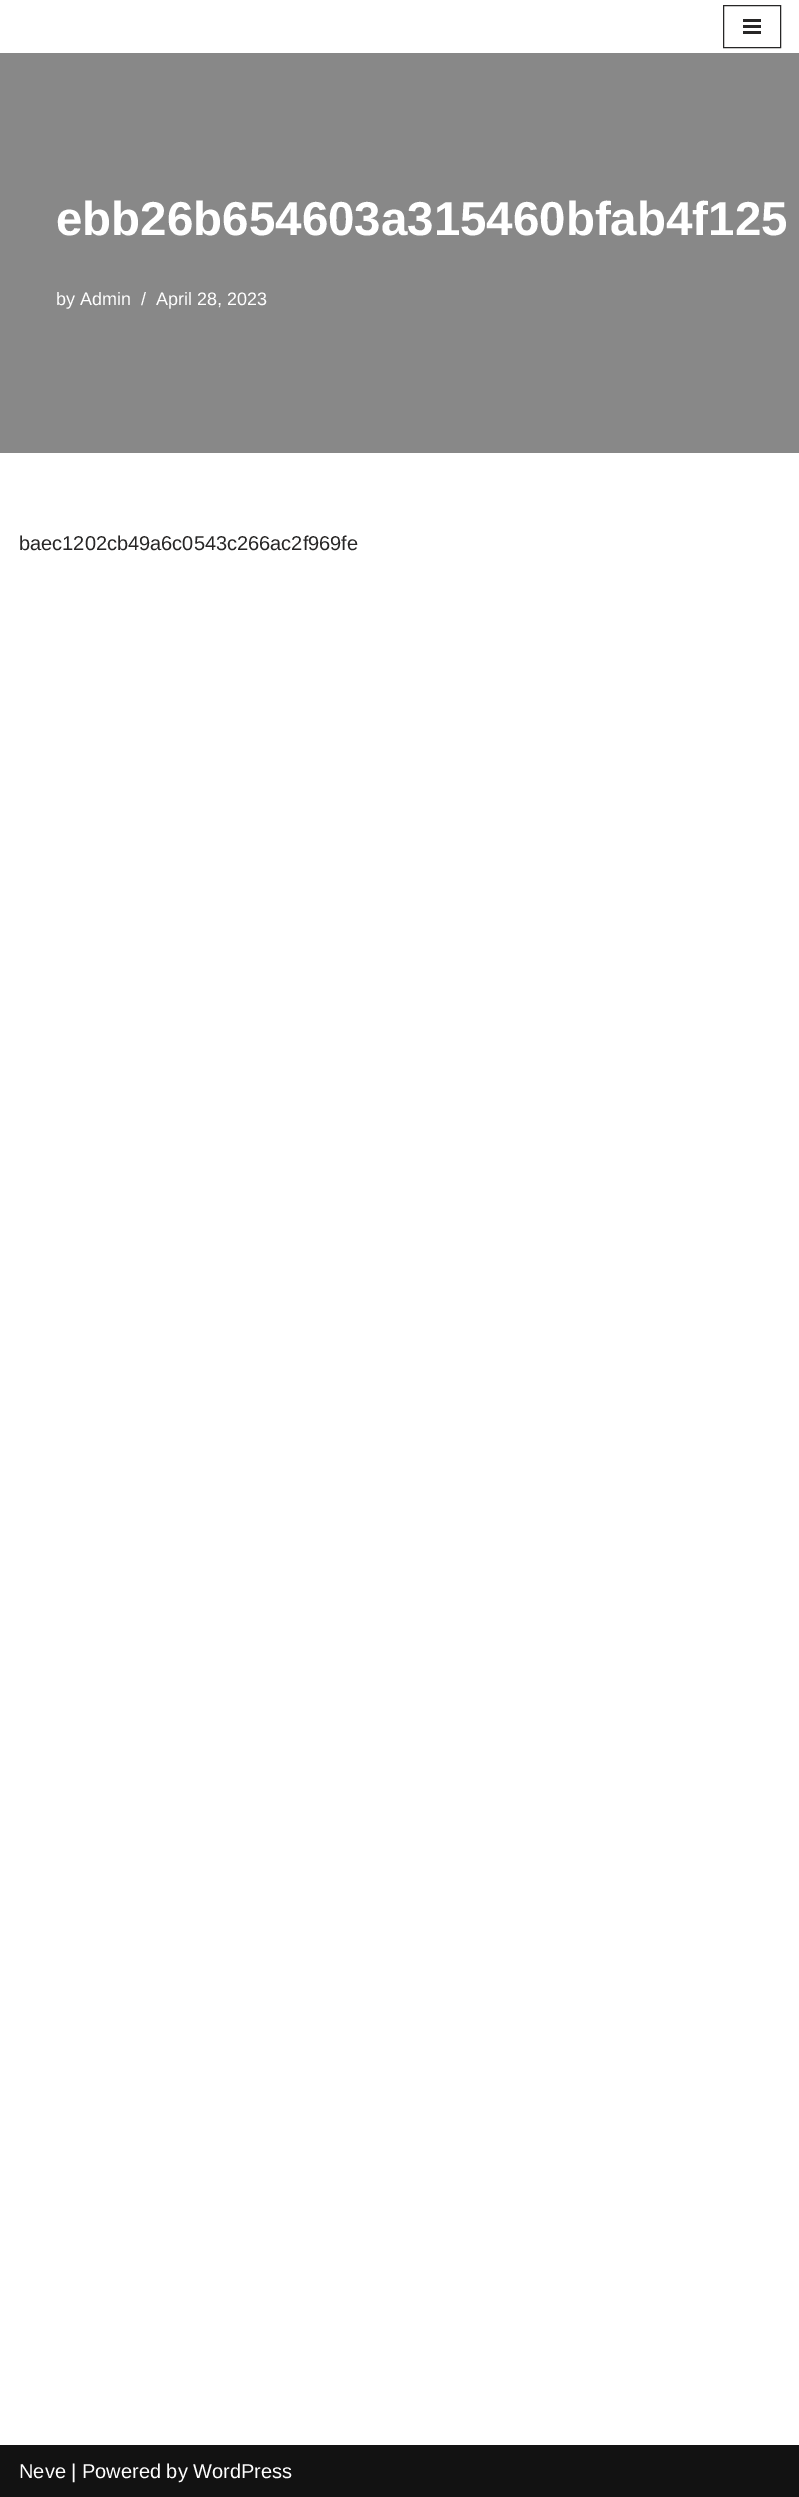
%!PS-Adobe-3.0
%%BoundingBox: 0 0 799 2497
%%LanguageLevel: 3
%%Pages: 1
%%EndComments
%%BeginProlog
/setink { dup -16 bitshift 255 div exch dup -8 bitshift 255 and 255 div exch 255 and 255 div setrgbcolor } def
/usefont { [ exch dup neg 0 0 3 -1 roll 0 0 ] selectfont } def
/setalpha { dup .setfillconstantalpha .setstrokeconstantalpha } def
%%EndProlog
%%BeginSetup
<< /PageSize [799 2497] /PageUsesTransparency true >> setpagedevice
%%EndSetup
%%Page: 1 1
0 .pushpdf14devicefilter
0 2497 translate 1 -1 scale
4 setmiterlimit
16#FFFFFF setink
0 0 799 2497 rectfill
16#272626 setink
723.5 5.5 57 42 rectstroke
[
    [743 19 18 3 16#272626]
    [743 25 18 3 16#272626]
    [743 31 18 3 16#272626]
] { aload pop setink rectfill } forall
0.5 setalpha
[
    [0 53 799 400 16#121212]
] { aload pop setink rectfill } forall
/LiberationSans-Bold 47.5 usefont
1 setalpha
16#FFFFFF setink
56 235 moveto (ebb26b654603a315460bfab4f125) show
/LiberationSans-Regular 18 usefont
[
    [(by Admin) 56 305]
    [(/) 141 305]
    [(April 28, 2023) 156 305]
] { aload pop moveto show } forall
/LiberationSans-Regular 20 usefont
16#272626 setink
19 550 moveto (baec1202cb49a6c0543c266ac2f969fe) show
16#121212 setink
0 2445 799 52 rectfill
16#FFFFFF setink
19 2478 moveto (Neve | Powered by WordPress) show
.poppdf14devicefilter showpage
%%EOF
